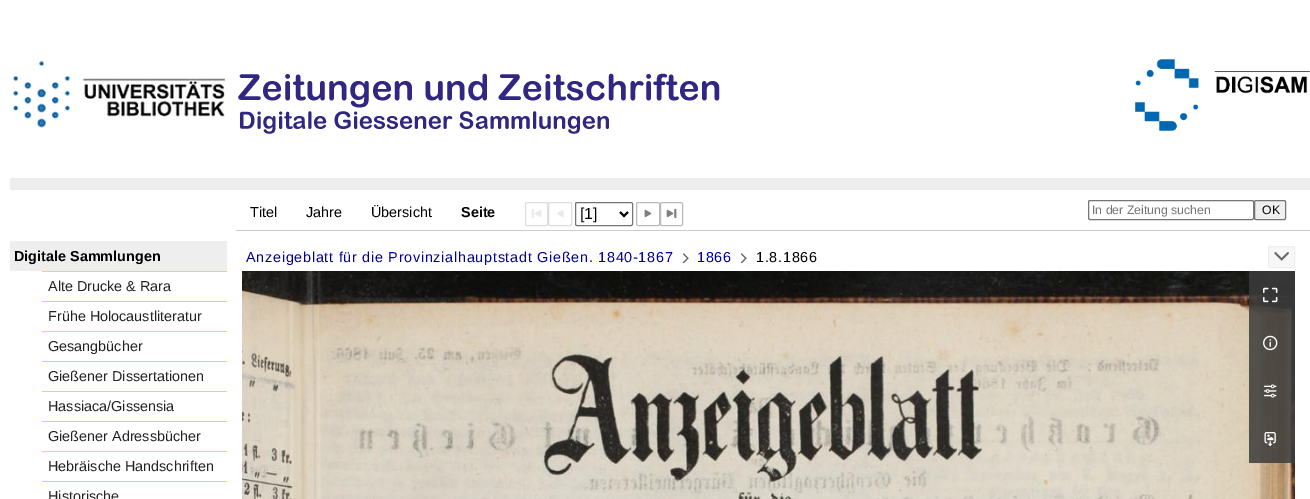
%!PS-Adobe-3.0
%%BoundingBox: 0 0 1310 499
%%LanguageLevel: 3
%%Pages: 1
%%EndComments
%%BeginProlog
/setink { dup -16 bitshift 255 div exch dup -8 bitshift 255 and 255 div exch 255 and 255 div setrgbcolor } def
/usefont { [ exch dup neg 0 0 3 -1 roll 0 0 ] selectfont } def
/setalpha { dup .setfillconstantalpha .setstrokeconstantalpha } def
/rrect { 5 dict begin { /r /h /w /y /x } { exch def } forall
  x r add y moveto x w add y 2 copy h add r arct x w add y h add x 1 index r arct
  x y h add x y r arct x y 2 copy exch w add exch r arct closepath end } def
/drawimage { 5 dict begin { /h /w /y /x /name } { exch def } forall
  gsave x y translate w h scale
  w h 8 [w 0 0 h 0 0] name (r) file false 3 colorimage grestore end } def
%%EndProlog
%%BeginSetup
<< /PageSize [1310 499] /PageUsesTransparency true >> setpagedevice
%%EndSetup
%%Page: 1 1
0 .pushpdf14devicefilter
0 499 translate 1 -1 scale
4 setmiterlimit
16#FFFFFF setink
0 0 1310 499 rectfill
16#EEEEEE setink
10 178 1300 12 rectfill
(img1.raw) 11 60 214 68 drawimage
(img2.raw) 238 73 482 61 drawimage
(img3.raw) 1135 59 175 72 drawimage
16#CCCCCC setink
236 230 1074 1 rectfill
/LiberationSans-Regular 14.4 usefont
16#000000 setink
[
    [(Titel) 250 217]
    [(Jahre) 306 217]
    [(Übersicht) 371 217]
] { aload pop moveto show } forall
/LiberationSans-Bold 14.4 usefont
461 217 moveto (Seite) show
16#DDDDDD setink
525.5 202.5 22 23 1.5 rrect stroke
(img4.raw) 531 209 11 9 drawimage
548.5 202.5 23 23 1.5 rrect stroke
(img5.raw) 557 210 7 7 drawimage
16#767676 setink
575.5 202.5 57 23 1.5 rrect stroke
16#000000 setink
2 setlinewidth
620 212 moveto 624 216 lineto 628 212 lineto stroke
/LiberationSans-Regular 16 usefont
580 219 moveto ([1]) show
16#BBBBBB setink
1 setlinewidth
636.5 202.5 23 23 1.5 rrect stroke
(img6.raw) 644 209 8 9 drawimage
660.5 202.5 22 23 1.5 rrect stroke
(img7.raw) 666 208 11 11 drawimage
16#767676 setink
1088.5 200.5 165 19 1.5 rrect stroke
/LiberationSans-Regular 12.25 usefont
16#757575 setink
1092 214 moveto (In der Zeitung suchen) show
16#EFEFEF setink
1254.5 200.5 31 19 1.5 rrect gsave fill grestore
16#767676 setink
stroke
16#000000 setink
1262 214 moveto (OK) show
16#EEEEEE setink
10 241 217 30 rectfill
/LiberationSans-Bold 14.4 usefont
16#000000 setink
14 261 moveto (Digitale Sammlungen) show
16#FFCC66 setink
42 271 185 1 rectfill
/LiberationSans-Regular 14.4 usefont
16#222222 setink
48 291 moveto (Alte Drucke & Rara) show
16#FFCC66 setink
42 301 185 1 rectfill
16#222222 setink
48 321 moveto (Frühe Holocaustliteratur) show
16#FFCC66 setink
42 331 185 1 rectfill
16#222222 setink
48 351 moveto (Gesangbücher) show
16#FFCC66 setink
42 361 185 1 rectfill
16#222222 setink
48 381 moveto (Gießener Dissertationen) show
16#FFCC66 setink
42 391 185 1 rectfill
16#222222 setink
48 411 moveto (Hassiaca/Gissensia) show
16#FFCC66 setink
42 421 185 1 rectfill
16#222222 setink
48 441 moveto (Gießener Adressbücher) show
16#FFCC66 setink
42 451 185 1 rectfill
16#222222 setink
48 471 moveto (Hebräische Handschriften) show
16#FFCC66 setink
42 481 185 1 rectfill
16#222222 setink
48 501 moveto (Historische) show
16#000099 setink
246 262 moveto 0.72 0 (Anzeigeblatt für die Provinzialhauptstadt Gießen. 1840-1867) ashow
(img8.raw) 682 253 7 11 drawimage
697 262 moveto 0.72 0 (1866) ashow
(img8.raw) 740 253 7 11 drawimage
16#000000 setink
756 262 moveto 0.72 0 (1.8.1866) ashow
16#F7F7F8 setink
1268.5 246.5 26 21 1.5 rrect gsave fill grestore
16#EEEEEE setink
stroke
(img9.raw) 1274 252 15 9 drawimage
(img10.raw) 242 271 1053 228 drawimage
0.85 setalpha
16#3B3B3B setink
1249 271 46 192 rectfill
1 setalpha
(img11.raw) 1263 287 15 16 drawimage
(img12.raw) 1263 335 15 16 drawimage
(img13.raw) 1263 384 14 14 drawimage
(img14.raw) 1264 432 12 15 drawimage
.poppdf14devicefilter showpage
%%EOF
